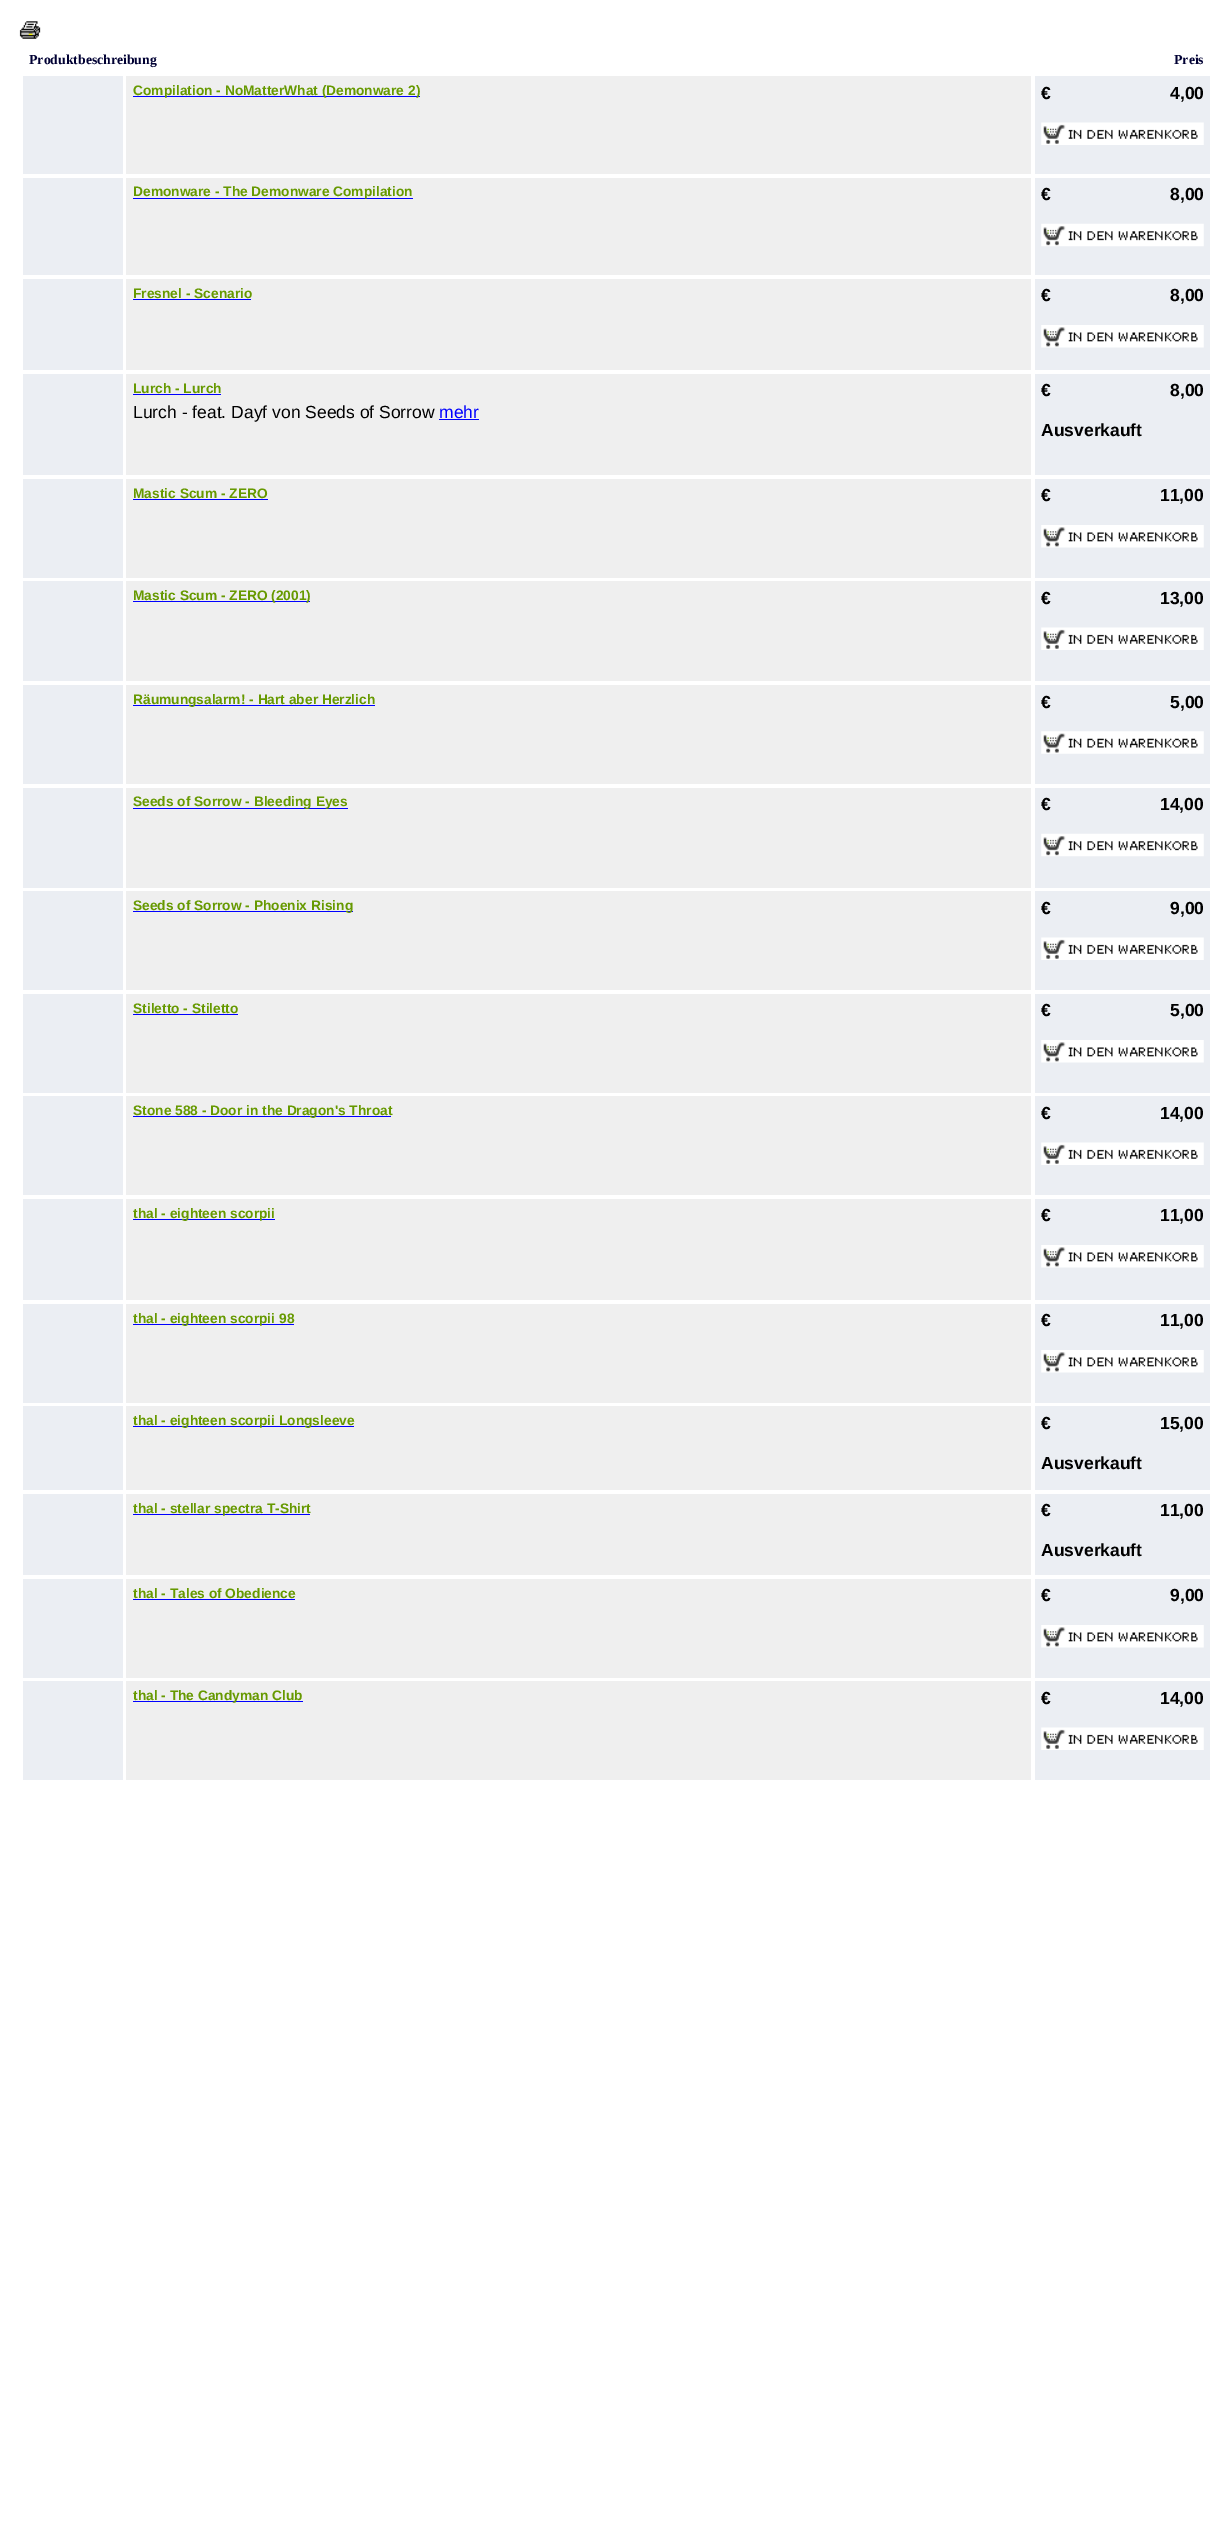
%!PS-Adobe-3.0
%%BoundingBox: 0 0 1232 2525
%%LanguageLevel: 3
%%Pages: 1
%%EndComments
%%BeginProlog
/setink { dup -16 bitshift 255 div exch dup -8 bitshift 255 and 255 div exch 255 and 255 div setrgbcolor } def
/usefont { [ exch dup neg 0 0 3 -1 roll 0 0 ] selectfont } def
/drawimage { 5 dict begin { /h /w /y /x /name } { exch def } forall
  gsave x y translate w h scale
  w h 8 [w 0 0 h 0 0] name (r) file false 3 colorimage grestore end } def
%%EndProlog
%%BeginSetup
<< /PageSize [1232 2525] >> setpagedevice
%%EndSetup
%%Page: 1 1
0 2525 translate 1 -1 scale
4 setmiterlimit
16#FFFFFF setink
0 0 1232 2525 rectfill
(img1.raw) 19 21 22 18 drawimage
/LiberationSerif-Bold 13.75 usefont
16#000033 setink
29 64 moveto (Produktbeschreibung) show
1174 64 moveto (Preis) show
[
    [23 76 100 98 16#EBEEF3]
    [126 76 905 98 16#EFEFEF]
    [133 96 287 1 16#0000FF]
] { aload pop setink rectfill } forall
/LiberationSans-Bold 13.75 usefont
16#669900 setink
133 95 moveto (Compilation - NoMatterWhat \(Demonware 2\)) show
16#EBEEF3 setink
1035 76 175 98 rectfill
/LiberationSans-Bold 17.5 usefont
16#000000 setink
1041 99 moveto (€) show
1170 99 moveto (4,00) show
(img2.raw) 1041 122 163 23 drawimage
[
    [23 178 100 97 16#EBEEF3]
    [126 178 905 97 16#EFEFEF]
    [133 198 280 1 16#0000FF]
] { aload pop setink rectfill } forall
/LiberationSans-Bold 13.75 usefont
16#669900 setink
133 196 moveto (Demonware - The Demonware Compilation) show
16#EBEEF3 setink
1035 178 175 97 rectfill
/LiberationSans-Bold 17.5 usefont
16#000000 setink
1041 200 moveto (€) show
1170 200 moveto (8,00) show
(img3.raw) 1041 223 163 24 drawimage
16#EBEEF3 setink
23 279 100 91 rectfill
16#EFEFEF setink
126 279 905 91 rectfill
/LiberationSans-Bold 13.75 usefont
16#669900 setink
133 298 moveto (Fresnel - Scenario) show
16#0000FF setink
133 299 118 1 rectfill
16#EBEEF3 setink
1035 279 175 91 rectfill
/LiberationSans-Bold 17.5 usefont
16#000000 setink
1041 301 moveto (€) show
1170 301 moveto (8,00) show
(img4.raw) 1041 325 163 23 drawimage
16#EBEEF3 setink
23 374 100 101 rectfill
16#EFEFEF setink
126 374 905 101 rectfill
/LiberationSans-Bold 13.75 usefont
16#669900 setink
133 393 moveto (Lurch - Lurch) show
16#0000FF setink
133 394 88 1 rectfill
/LiberationSans-Regular 17.5 usefont
16#000000 setink
133 418 moveto (Lurch - feat. Dayf von Seeds of Sorrow) show
16#0000FF setink
439 418 moveto (mehr) show
439 419 40 1 rectfill
16#EBEEF3 setink
1035 374 175 101 rectfill
/LiberationSans-Bold 17.5 usefont
16#000000 setink
[
    [(€) 1041 396]
    [(8,00) 1170 396]
    [(Ausverkauft) 1041 436]
] { aload pop moveto show } forall
16#EBEEF3 setink
23 479 100 99 rectfill
16#EFEFEF setink
126 479 905 99 rectfill
/LiberationSans-Bold 13.75 usefont
16#669900 setink
133 498 moveto (Mastic Scum - ZERO) show
16#0000FF setink
133 499 135 1 rectfill
16#EBEEF3 setink
1035 479 175 99 rectfill
/LiberationSans-Bold 17.5 usefont
16#000000 setink
1041 501 moveto (€) show
1160 501 moveto (11,00) show
(img4.raw) 1041 525 163 23 drawimage
[
    [23 581 100 100 16#EBEEF3]
    [126 581 905 100 16#EFEFEF]
    [133 601 177 1 16#0000FF]
] { aload pop setink rectfill } forall
/LiberationSans-Bold 13.75 usefont
16#669900 setink
133 600 moveto (Mastic Scum - ZERO \(2001\)) show
16#EBEEF3 setink
1035 581 175 100 rectfill
/LiberationSans-Bold 17.5 usefont
16#000000 setink
1041 604 moveto (€) show
1160 604 moveto (13,00) show
(img2.raw) 1041 627 163 23 drawimage
[
    [23 685 100 99 16#EBEEF3]
    [126 685 905 99 16#EFEFEF]
    [133 705 242 1 16#0000FF]
] { aload pop setink rectfill } forall
/LiberationSans-Bold 13.75 usefont
16#669900 setink
133 704 moveto (Räumungsalarm! - Hart aber Herzlich) show
16#EBEEF3 setink
1035 685 175 99 rectfill
/LiberationSans-Bold 17.5 usefont
16#000000 setink
1041 708 moveto (€) show
1170 708 moveto (5,00) show
(img5.raw) 1041 731 163 23 drawimage
[
    [23 788 100 100 16#EBEEF3]
    [126 788 905 100 16#EFEFEF]
    [133 808 215 1 16#0000FF]
] { aload pop setink rectfill } forall
/LiberationSans-Bold 13.75 usefont
16#669900 setink
133 806 moveto (Seeds of Sorrow - Bleeding Eyes) show
16#EBEEF3 setink
1035 788 175 100 rectfill
/LiberationSans-Bold 17.5 usefont
16#000000 setink
1041 810 moveto (€) show
1160 810 moveto (14,00) show
(img3.raw) 1041 833 163 24 drawimage
[
    [23 891 100 99 16#EBEEF3]
    [126 891 905 99 16#EFEFEF]
    [133 911 220 1 16#0000FF]
] { aload pop setink rectfill } forall
/LiberationSans-Bold 13.75 usefont
16#669900 setink
133 910 moveto (Seeds of Sorrow - Phoenix Rising) show
16#EBEEF3 setink
1035 891 175 99 rectfill
/LiberationSans-Bold 17.5 usefont
16#000000 setink
1041 914 moveto (€) show
1170 914 moveto (9,00) show
(img2.raw) 1041 937 163 23 drawimage
16#EBEEF3 setink
23 994 100 99 rectfill
16#EFEFEF setink
126 994 905 99 rectfill
/LiberationSans-Bold 13.75 usefont
16#669900 setink
133 1013 moveto (Stiletto - Stiletto) show
16#0000FF setink
133 1014 105 1 rectfill
16#EBEEF3 setink
1035 994 175 99 rectfill
/LiberationSans-Bold 17.5 usefont
16#000000 setink
1041 1016 moveto (€) show
1170 1016 moveto (5,00) show
(img4.raw) 1041 1040 163 23 drawimage
[
    [23 1096 100 99 16#EBEEF3]
    [126 1096 905 99 16#EFEFEF]
    [133 1116 258 1 16#0000FF]
] { aload pop setink rectfill } forall
/LiberationSans-Bold 13.75 usefont
16#669900 setink
133 1115 moveto (Stone 588 - Door in the Dragon's Throat) show
16#EBEEF3 setink
1035 1096 175 99 rectfill
/LiberationSans-Bold 17.5 usefont
16#000000 setink
1041 1119 moveto (€) show
1160 1119 moveto (14,00) show
(img2.raw) 1041 1142 163 23 drawimage
[
    [23 1199 100 101 16#EBEEF3]
    [126 1199 905 101 16#EFEFEF]
    [133 1219 142 1 16#0000FF]
] { aload pop setink rectfill } forall
/LiberationSans-Bold 13.75 usefont
16#669900 setink
133 1218 moveto (thal - eighteen scorpii) show
16#EBEEF3 setink
1035 1199 175 101 rectfill
/LiberationSans-Bold 17.5 usefont
16#000000 setink
1041 1221 moveto (€) show
1160 1221 moveto (11,00) show
(img4.raw) 1041 1245 163 23 drawimage
[
    [23 1304 100 99 16#EBEEF3]
    [126 1304 905 99 16#EFEFEF]
    [133 1324 161 1 16#0000FF]
] { aload pop setink rectfill } forall
/LiberationSans-Bold 13.75 usefont
16#669900 setink
133 1323 moveto (thal - eighteen scorpii 98) show
16#EBEEF3 setink
1035 1304 175 99 rectfill
/LiberationSans-Bold 17.5 usefont
16#000000 setink
1041 1326 moveto (€) show
1160 1326 moveto (11,00) show
(img4.raw) 1041 1350 163 23 drawimage
[
    [23 1406 100 84 16#EBEEF3]
    [126 1406 905 84 16#EFEFEF]
    [133 1426 221 1 16#0000FF]
] { aload pop setink rectfill } forall
/LiberationSans-Bold 13.75 usefont
16#669900 setink
133 1425 moveto (thal - eighteen scorpii Longsleeve) show
16#EBEEF3 setink
1035 1406 175 84 rectfill
/LiberationSans-Bold 17.5 usefont
16#000000 setink
[
    [(€) 1041 1429]
    [(15,00) 1160 1429]
    [(Ausverkauft) 1041 1469]
] { aload pop moveto show } forall
[
    [23 1494 100 81 16#EBEEF3]
    [126 1494 905 81 16#EFEFEF]
    [133 1514 177 1 16#0000FF]
] { aload pop setink rectfill } forall
/LiberationSans-Bold 13.75 usefont
16#669900 setink
133 1513 moveto (thal - stellar spectra T-Shirt) show
16#EBEEF3 setink
1035 1494 175 81 rectfill
/LiberationSans-Bold 17.5 usefont
16#000000 setink
[
    [(€) 1041 1516]
    [(11,00) 1160 1516]
    [(Ausverkauft) 1041 1556]
] { aload pop moveto show } forall
16#EBEEF3 setink
23 1579 100 99 rectfill
16#EFEFEF setink
126 1579 905 99 rectfill
/LiberationSans-Bold 13.75 usefont
16#669900 setink
133 1598 moveto (thal - Tales of Obedience) show
16#0000FF setink
133 1599 162 1 rectfill
16#EBEEF3 setink
1035 1579 175 99 rectfill
/LiberationSans-Bold 17.5 usefont
16#000000 setink
1041 1601 moveto (€) show
1170 1601 moveto (9,00) show
(img4.raw) 1041 1625 163 23 drawimage
[
    [23 1681 100 99 16#EBEEF3]
    [126 1681 905 99 16#EFEFEF]
    [133 1701 170 1 16#0000FF]
] { aload pop setink rectfill } forall
/LiberationSans-Bold 13.75 usefont
16#669900 setink
133 1700 moveto (thal - The Candyman Club) show
16#EBEEF3 setink
1035 1681 175 99 rectfill
/LiberationSans-Bold 17.5 usefont
16#000000 setink
1041 1704 moveto (€) show
1160 1704 moveto (14,00) show
(img2.raw) 1041 1727 163 23 drawimage
showpage
%%EOF
